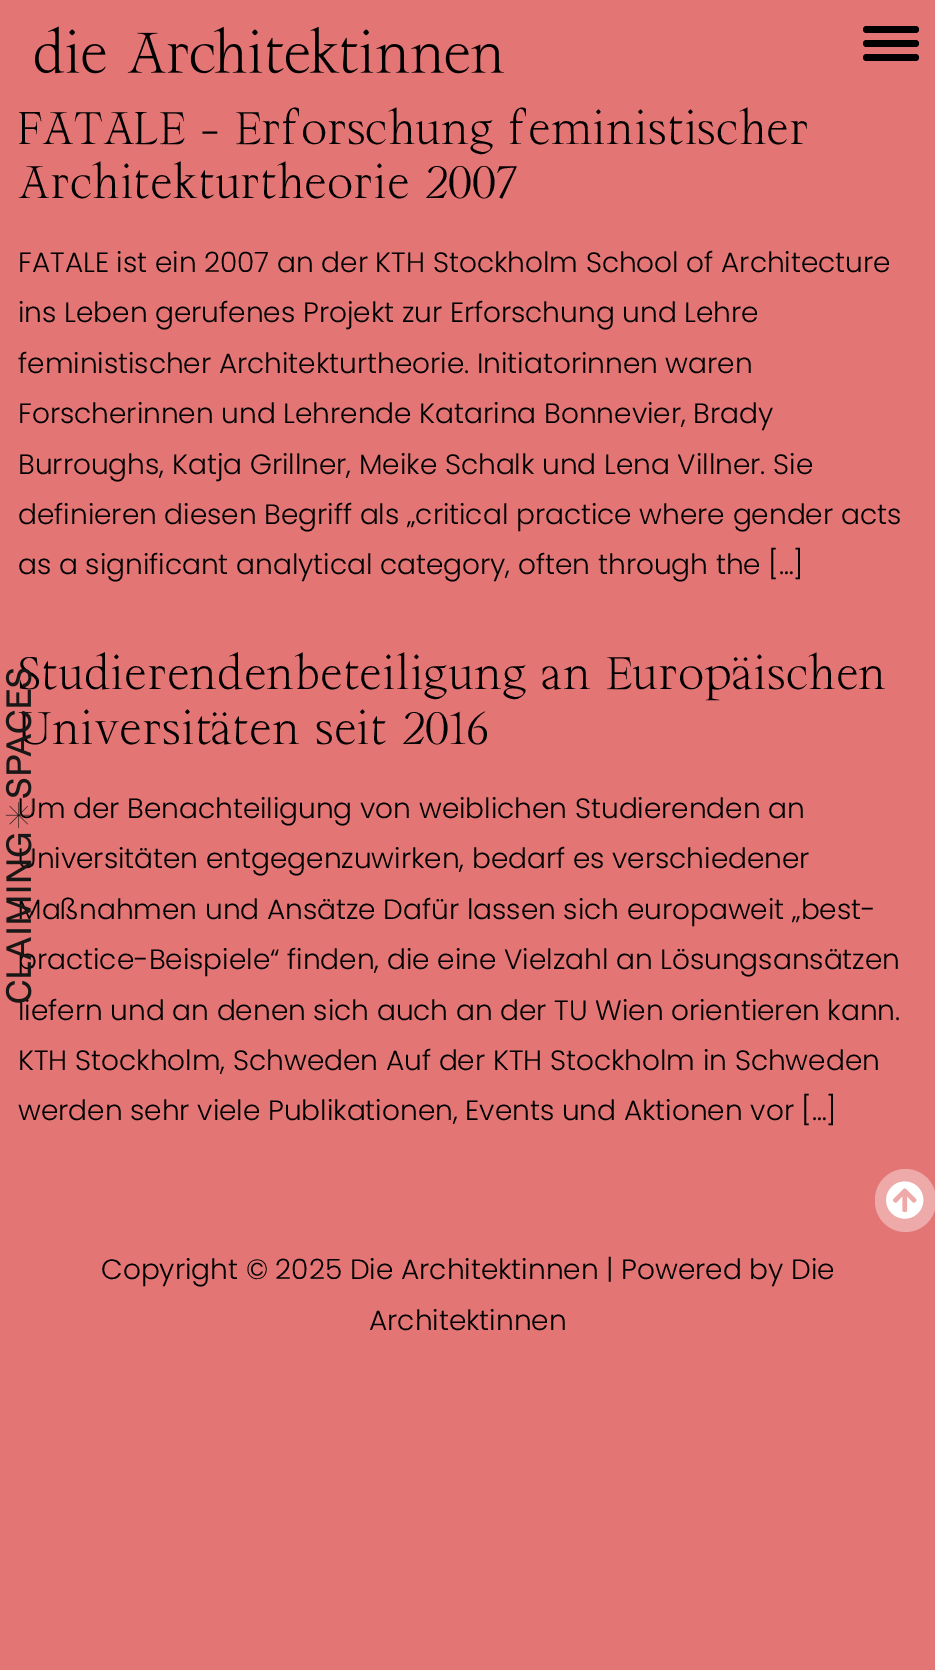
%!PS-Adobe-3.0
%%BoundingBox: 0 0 935 1670
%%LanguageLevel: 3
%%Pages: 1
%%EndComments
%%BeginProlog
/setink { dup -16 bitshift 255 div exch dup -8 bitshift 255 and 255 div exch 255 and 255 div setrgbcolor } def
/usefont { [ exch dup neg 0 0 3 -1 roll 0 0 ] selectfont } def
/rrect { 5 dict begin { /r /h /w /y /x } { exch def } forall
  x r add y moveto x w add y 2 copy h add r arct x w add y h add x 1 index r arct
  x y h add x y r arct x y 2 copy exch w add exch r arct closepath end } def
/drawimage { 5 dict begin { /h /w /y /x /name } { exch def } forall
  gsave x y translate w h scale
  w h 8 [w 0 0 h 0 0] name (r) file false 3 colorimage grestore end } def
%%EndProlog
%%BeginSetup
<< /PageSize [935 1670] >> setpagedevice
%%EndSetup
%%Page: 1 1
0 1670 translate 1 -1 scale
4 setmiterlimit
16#E37575 setink
0 0 935 1670 rectfill
(img1.raw) 35 26 469 48 drawimage
16#000000 setink
863 26 56 7 3.5 rrect fill
863 40 56 7 3.5 rrect fill
863 54 56 7 3.5 rrect fill
/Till-Regular 45.5 usefont
18 144 moveto (FATALE – Erforschung feministischer) show
18 198 moveto (Architekturtheorie 2007) show
/Poppins-Light 28 usefont
[
    [(FATALE ist ein 2007 an der KTH Stockholm School of Architecture) 18 272]
    [(ins Leben gerufenes Projekt zur Erforschung und Lehre) 18 322]
    [(feministischer Architekturtheorie. Initiatorinnen waren) 18 373]
    [(Forscherinnen und Lehrende Katarina Bonnevier, Brady) 18 423]
    [(Burroughs, Katja Grillner, Meike Schalk und Lena Villner. Sie) 18 474]
    [(definieren diesen Begriff als „critical practice where gender acts) 18 524]
    [(as a significant analytical category, often through the […]) 18 574]
] { aload pop moveto show } forall
/Till-Regular 45.5 usefont
18 689 moveto (Studierendenbeteiligung an Europäischen) show
18 744 moveto (Universitäten seit 2016) show
/Poppins-Light 28 usefont
[
    [(Um der Benachteiligung von weiblichen Studierenden an) 18 818]
    [(Universitäten entgegenzuwirken, bedarf es verschiedener) 18 868]
    [(Maßnahmen und Ansätze Dafür lassen sich europaweit „best-) 18 919]
    [(practice-Beispiele“ finden, die eine Vielzahl an Lösungsansätzen) 18 969]
    [(liefern und an denen sich auch an der TU Wien orientieren kann.) 18 1020]
    [(KTH Stockholm, Schweden Auf der KTH Stockholm in Schweden) 18 1070]
    [(werden sehr viele Publikationen, Events und Aktionen vor […]) 18 1120]
] { aload pop moveto show } forall
(img2.raw) 5 669 27 334 drawimage
16#EEA9A9 setink
875 1169 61 63 30.5 rrect fill
(img3.raw) 886 1181 38 38 drawimage
16#000000 setink
101 1279 moveto (Copyright © 2025 Die Architektinnen | Powered by Die) show
369 1330 moveto (Architektinnen) show
showpage
%%EOF
